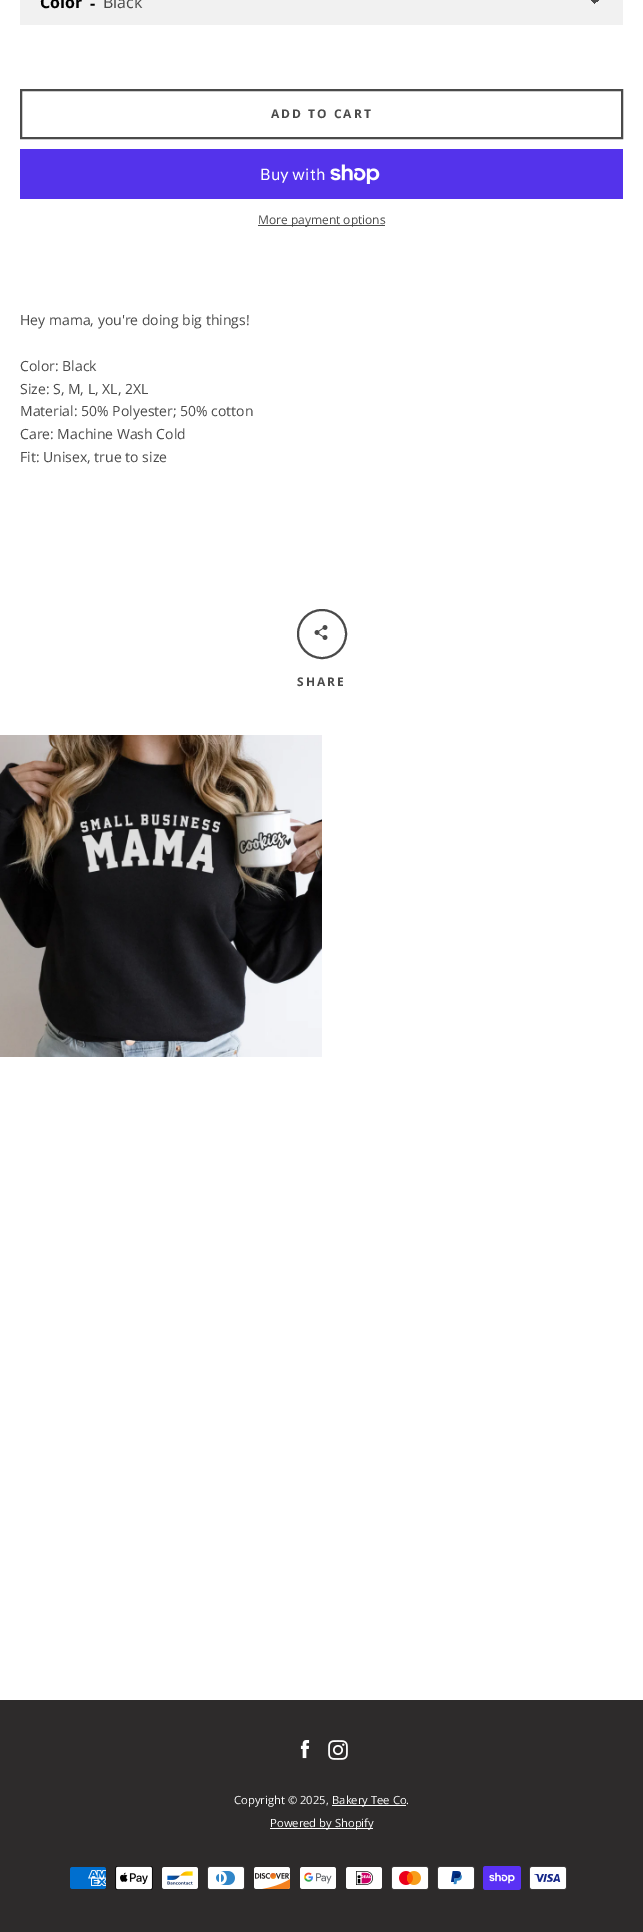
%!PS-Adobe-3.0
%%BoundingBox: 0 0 643 1932
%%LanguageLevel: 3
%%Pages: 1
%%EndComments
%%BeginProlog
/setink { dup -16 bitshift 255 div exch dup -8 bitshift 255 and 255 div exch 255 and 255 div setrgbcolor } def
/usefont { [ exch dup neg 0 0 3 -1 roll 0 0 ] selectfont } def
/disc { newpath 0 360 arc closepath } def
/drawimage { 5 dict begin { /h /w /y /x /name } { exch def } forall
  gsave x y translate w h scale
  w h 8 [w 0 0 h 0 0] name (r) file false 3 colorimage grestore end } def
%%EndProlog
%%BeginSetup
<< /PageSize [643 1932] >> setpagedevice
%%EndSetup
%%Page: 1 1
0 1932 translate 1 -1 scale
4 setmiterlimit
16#2D2B2B setink
0 0 643 1932 rectfill
16#FFFFFF setink
0 0 643 1700 rectfill
16#F1F1F1 setink
20 0 603 25 rectfill
/OpenSans-Bold 16 usefont
16#000000 setink
40 8 moveto (Color) show
90 9 moveto (-) show
gsave 595 0 moveto 599 0 lineto 599 3 lineto 595 3 lineto closepath clip newpath
<< /ShadingType 2 /ColorSpace /DeviceRGB /Coords [595 0 599 4] /Extend [true true] /Function << /FunctionType 3 /Domain [0 1] /Functions [<< /FunctionType 2 /Domain [0 1] /C0 [0.29 0.29 0.29] /C1 [0.29 0.29 0.29] /N 1 >> << /FunctionType 2 /Domain [0 1] /C0 [0.945 0.945 0.945] /C1 [0.945 0.945 0.945] /N 1 >>] /Bounds [0.5] /Encode [0 1 0 1] >> >> shfill grestore
gsave 591 0 moveto 595 0 lineto 595 4 lineto 591 4 lineto closepath clip newpath
<< /ShadingType 2 /ColorSpace /DeviceRGB /Coords [591 4 595 0] /Extend [true true] /Function << /FunctionType 3 /Domain [0 1] /Functions [<< /FunctionType 2 /Domain [0 1] /C0 [0.945 0.945 0.945] /C1 [0.945 0.945 0.945] /N 1 >> << /FunctionType 2 /Domain [0 1] /C0 [0.29 0.29 0.29] /C1 [0.29 0.29 0.29] /N 1 >>] /Bounds [0.5] /Encode [0 1 0 1] >> >> shfill grestore
/OpenSans-Regular 16 usefont
16#4A4A4A setink
103 8 moveto (Black) show
2 setlinewidth
21 90 601 48 rectstroke
/OpenSans-Bold 12 usefont
271 118 moveto 2 0 (ADD TO CART) ashow
16#5433EB setink
20 149 603 50 rectfill
/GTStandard-Regular 16 usefont
16#FFFFFF setink
260 180 moveto (Buy with) show
(img1.raw) 330 164 50 20 drawimage
16#4A4A4A setink
258 225 127 1 rectfill
/OpenSans-Regular 12 usefont
258 224 moveto (More payment options) show
/OpenSans-Regular 14 usefont
[
    [(Hey mama, you're doing big things!) 20 325]
    [(Color: Black) 20 371]
    [(Size: S, M, L, XL, 2XL) 20 394]
    [(Material: 50% Polyester; 50% cotton) 20 416]
    [(Care: Machine Wash Cold) 20 439]
    [(Fit: Unisex, true to size) 20 462]
] { aload pop moveto show } forall
322 634 24 disc stroke
(img2.raw) 314 625 14 15 drawimage
/OpenSans-Bold 12 usefont
297 686 moveto 2 0 (SHARE) ashow
(img3.raw) 0 735 322 322 drawimage
(img4.raw) 300 1740 10 19 drawimage
(img5.raw) 328 1740 20 20 drawimage
/OpenSans-Regular 11.25 usefont
16#FFFFFF setink
234 1804 moveto (Copyright © 2025,) show
332 1805 74 1 rectfill
332 1804 moveto (Bakery Tee Co.) show
270 1828 103 1 rectfill
270 1827 moveto (Powered by Shopify) show
(img6.raw) 70 1867 36 22 drawimage
(img7.raw) 115 1866 38 24 drawimage
(img8.raw) 162 1867 36 22 drawimage
(img9.raw) 207 1866 38 24 drawimage
(img10.raw) 254 1867 36 22 drawimage
(img11.raw) 300 1867 36 22 drawimage
(img12.raw) 346 1867 36 22 drawimage
(img13.raw) 391 1866 38 24 drawimage
(img14.raw) 437 1866 38 24 drawimage
(img15.raw) 483 1866 38 24 drawimage
(img16.raw) 529 1866 38 24 drawimage
showpage
%%EOF
